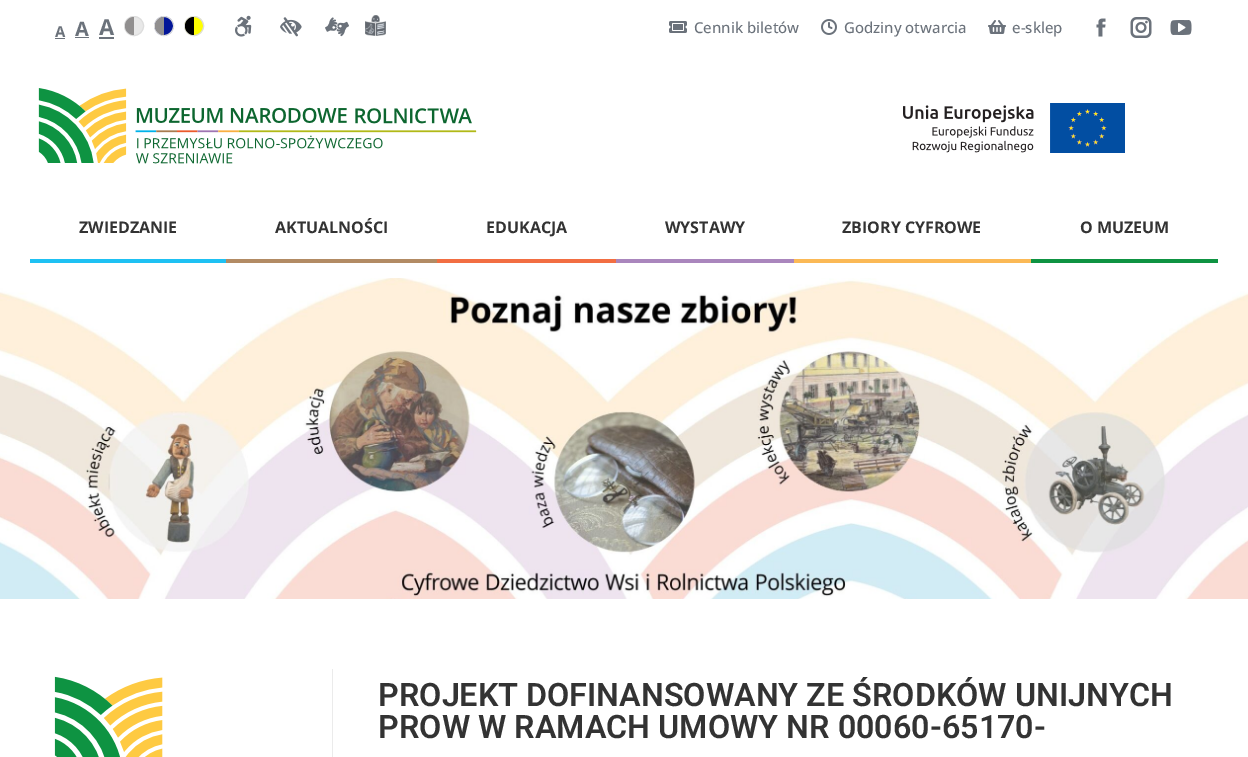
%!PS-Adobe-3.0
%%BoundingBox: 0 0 1248 757
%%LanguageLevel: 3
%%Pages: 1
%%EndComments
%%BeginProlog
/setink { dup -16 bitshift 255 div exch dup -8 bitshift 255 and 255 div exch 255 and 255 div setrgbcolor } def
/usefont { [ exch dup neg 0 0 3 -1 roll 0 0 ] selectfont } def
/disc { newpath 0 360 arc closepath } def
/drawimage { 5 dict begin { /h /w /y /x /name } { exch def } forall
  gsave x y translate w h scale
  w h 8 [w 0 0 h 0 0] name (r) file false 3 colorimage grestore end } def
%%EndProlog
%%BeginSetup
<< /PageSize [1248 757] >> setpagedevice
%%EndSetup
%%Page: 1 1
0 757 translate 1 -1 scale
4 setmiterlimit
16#FFFFFF setink
0 0 1248 757 rectfill
/OpenSans-Bold 15 usefont
16#6B727B setink
55 37 moveto (A) show
55 38 10 1 rectfill
/OpenSans-Bold 20 usefont
75 36 moveto (A) show
75 37 14 1 rectfill
/OpenSans-Bold 22 usefont
99 35 moveto (A) show
99 37 15 2 rectfill
16#E8E8E8 setink
134 26 9.5 disc gsave fill grestore
16#DDDDDD setink
stroke
16#918F8F setink
134 17 moveto 134 35 lineto 129 35 125 31 125 26 curveto 125 21 129 17 134 17 curveto closepath fill
16#031698 setink
164 26 9.5 disc gsave fill grestore
16#DDDDDD setink
stroke
16#918F8F setink
164 17 moveto 164 35 lineto 159 35 155 31 155 26 curveto 155 21 159 17 164 17 curveto closepath fill
16#FFFF00 setink
194 26 9.5 disc gsave fill grestore
16#DDDDDD setink
stroke
16#000000 setink
194 17 moveto 194 35 lineto 189 35 185 31 185 26 curveto 185 21 189 17 194 17 curveto closepath fill
(img1.raw) 235 15 17 22 drawimage
(img2.raw) 280 17 22 20 drawimage
(img3.raw) 325 17 24 20 drawimage
(img4.raw) 365 15 21 21 drawimage
(img5.raw) 669 21 18 12 drawimage
/OpenSans-Medium 15 usefont
16#6B727B setink
694 33 moveto (Cennik biletów) show
(img6.raw) 821 19 16 16 drawimage
844 33 moveto (Godziny otwarcia) show
(img7.raw) 988 20 18 14 drawimage
1012 33 moveto (e-sklep) show
(img8.raw) 1096 18 10 19 drawimage
(img9.raw) 1130 17 22 21 drawimage
(img10.raw) 1170 20 22 15 drawimage
(img11.raw) 38 88 439 76 drawimage
(img12.raw) 903 103 222 50 drawimage
16#1EC1F3 setink
30 259 196 4 rectfill
/OpenSans-Bold 16 usefont
16#333333 setink
79 233 moveto (ZWIEDZANIE) show
16#B28B64 setink
226 259 211 4 rectfill
16#333333 setink
275 233 moveto (AKTUALNOŚCI) show
16#F26E42 setink
437 259 179 4 rectfill
16#333333 setink
486 233 moveto (EDUKACJA) show
16#AA86BD setink
616 259 178 4 rectfill
16#333333 setink
665 233 moveto (WYSTAWY) show
16#FBB956 setink
794 259 237 4 rectfill
16#333333 setink
842 233 moveto (ZBIORY CYFROWE) show
16#0E9342 setink
1031 259 187 4 rectfill
16#333333 setink
1080 233 moveto (O MUZEUM) show
(img13.raw) 0 278 1248 321 drawimage
16#EBEBEB setink
332 669 1 88 rectfill
(img14.raw) 54 676 109 81 drawimage
/Roboto-SemiBold 32.3 usefont
16#333333 setink
378 706 moveto (PROJEKT DOFINANSOWANY ZE ŚRODKÓW UNIJNYCH) show
378 738 moveto (PROW W RAMACH UMOWY NR 00060-65170-) show
showpage
%%EOF
